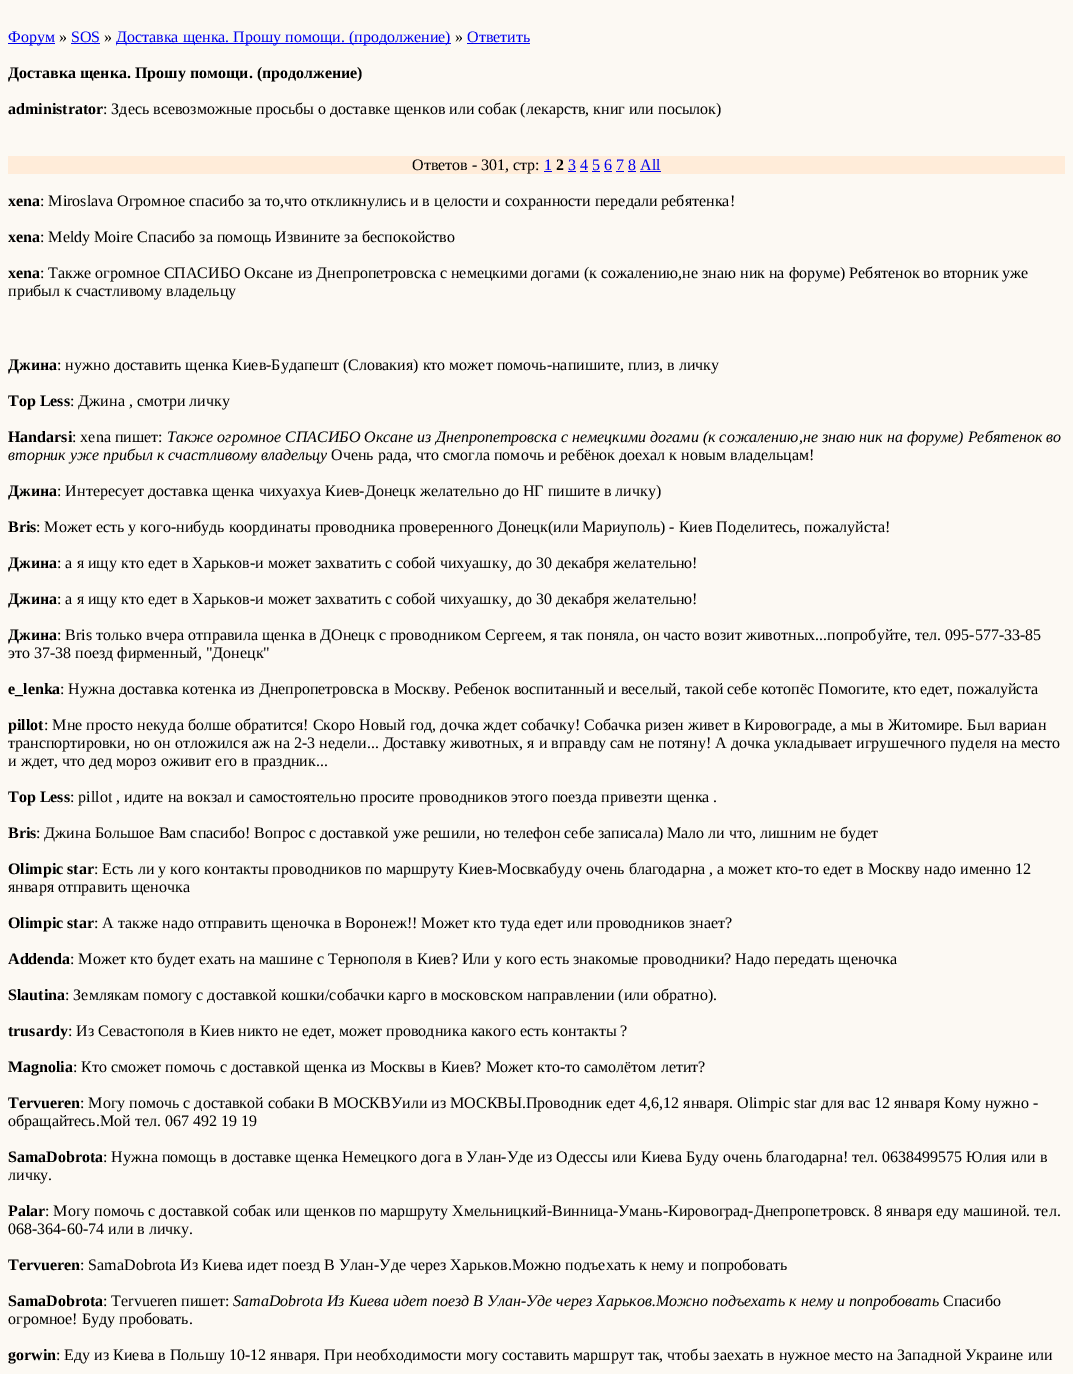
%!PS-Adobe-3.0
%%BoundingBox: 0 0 1073 1374
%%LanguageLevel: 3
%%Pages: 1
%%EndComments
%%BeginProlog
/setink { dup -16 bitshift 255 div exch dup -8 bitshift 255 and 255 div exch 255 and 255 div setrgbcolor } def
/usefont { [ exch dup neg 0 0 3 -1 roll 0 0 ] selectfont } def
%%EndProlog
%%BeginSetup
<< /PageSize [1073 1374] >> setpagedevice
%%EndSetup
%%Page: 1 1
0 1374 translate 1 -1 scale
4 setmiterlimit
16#FCF9F3 setink
0 0 1073 1374 rectfill
16#0000EE setink
8 43 47 1 rectfill
/LiberationSerif-Regular 16 usefont
8 42 moveto (Форум) show
16#000000 setink
59 42 moveto (») show
16#0000EE setink
71 42 moveto (SOS) show
71 43 29 1 rectfill
16#000000 setink
104 42 moveto (») show
16#0000EE setink
116 43 335 1 rectfill
116 42 moveto (Доставка щенка. Прошу помощи. \(продолжение\)) show
16#000000 setink
455 42 moveto (») show
16#0000EE setink
467 42 moveto (Ответить) show
467 43 63 1 rectfill
/LiberationSerif-Bold 16 usefont
16#000000 setink
8 78 moveto (Доставка щенка. Прошу помощи. \(продолжение\)) show
8 114 moveto (administrator) show
/LiberationSerif-Regular 16 usefont
103 114 moveto (: Здесь всевозможные просьбы о доставке щенков или собак \(лекарств, книг или посылок\)) show
16#FFECD9 setink
8 156 1057 18 rectfill
16#000000 setink
412 170 moveto (Ответов - 301, стр:) show
16#0000EE setink
544 170 moveto (1) show
544 171 8 1 rectfill
/LiberationSerif-Bold 16 usefont
16#000000 setink
556 170 moveto (2) show
/LiberationSerif-Regular 16 usefont
16#0000EE setink
568 170 moveto (3 4 5 6 7 8 All) show
[
    [568 171 8 1 16#0000EE]
    [580 171 8 1 16#0000EE]
    [592 171 8 1 16#0000EE]
    [604 171 8 1 16#0000EE]
    [616 171 8 1 16#0000EE]
    [628 171 8 1 16#0000EE]
    [640 171 21 1 16#0000EE]
] { aload pop setink rectfill } forall
/LiberationSerif-Bold 16 usefont
16#000000 setink
8 206 moveto (xena) show
/LiberationSerif-Regular 16 usefont
40 206 moveto (: Miroslava Огромное спасибо за то,что откликнулись и в целости и сохранности передали ребятенка!) show
/LiberationSerif-Bold 16 usefont
8 242 moveto (xena) show
/LiberationSerif-Regular 16 usefont
40 242 moveto (: Meldy Moire Спасибо за помощь Извините за беспокойство) show
/LiberationSerif-Bold 16 usefont
8 278 moveto (xena) show
/LiberationSerif-Regular 16 usefont
40 278 moveto (: Также огромное СПАСИБО Оксане из Днепропетровска с немецкими догами \(к сожалению,не знаю ник на форуме\) Ребятенок во вторник уже) show
8 296 moveto (прибыл к счастливому владельцу) show
/LiberationSerif-Bold 16 usefont
8 370 moveto (Джина) show
/LiberationSerif-Regular 16 usefont
57 370 moveto (: нужно доставить щенка Киев-Будапешт \(Словакия\) кто может помочь-напишите, плиз, в личку) show
/LiberationSerif-Bold 16 usefont
8 406 moveto (Top Less) show
/LiberationSerif-Regular 16 usefont
70 406 moveto (: Джина , смотри личку) show
/LiberationSerif-Bold 16 usefont
8 442 moveto (Handarsi) show
/LiberationSerif-Regular 16 usefont
72 442 moveto (: xena пишет:) show
/LiberationSerif-Italic 16 usefont
167 442 moveto (Также огромное СПАСИБО Оксане из Днепропетровска с немецкими догами \(к сожалению,не знаю ник на форуме\) Ребятенок во) show
8 460 moveto (вторник уже прибыл к счастливому владельцу) show
/LiberationSerif-Regular 16 usefont
331 460 moveto (Очень рада, что смогла помочь и ребёнок доехал к новым владельцам!) show
/LiberationSerif-Bold 16 usefont
8 496 moveto (Джина) show
/LiberationSerif-Regular 16 usefont
57 496 moveto (: Интересует доставка щенка чихуахуа Киев-Донецк желательно до НГ пишите в личку\)) show
/LiberationSerif-Bold 16 usefont
8 532 moveto (Bris) show
/LiberationSerif-Regular 16 usefont
36 532 moveto (: Может есть у кого-нибудь координаты проводника проверенного Донецк\(или Мариуполь\) - Киев Поделитесь, пожалуйста!) show
/LiberationSerif-Bold 16 usefont
8 568 moveto (Джина) show
/LiberationSerif-Regular 16 usefont
57 568 moveto (: а я ищу кто едет в Харьков-и может захватить с собой чихуашку, до 30 декабря желательно!) show
/LiberationSerif-Bold 16 usefont
8 604 moveto (Джина) show
/LiberationSerif-Regular 16 usefont
57 604 moveto (: а я ищу кто едет в Харьков-и может захватить с собой чихуашку, до 30 декабря желательно!) show
/LiberationSerif-Bold 16 usefont
8 640 moveto (Джина) show
/LiberationSerif-Regular 16 usefont
57 640 moveto (: Bris только вчера отправила щенка в ДОнецк с проводником Сергеем, я так поняла, он часто возит животных...попробуйте, тел. 095-577-33-85) show
8 658 moveto (это 37-38 поезд фирменный, "Донецк") show
/LiberationSerif-Bold 16 usefont
8 694 moveto (e_lenka) show
/LiberationSerif-Regular 16 usefont
60 694 moveto (: Нужна доставка котенка из Днепропетровска в Москву. Ребенок воспитанный и веселый, такой себе котопёс Помогите, кто едет, пожалуйста) show
/LiberationSerif-Bold 16 usefont
8 730 moveto (pillot) show
/LiberationSerif-Regular 16 usefont
[
    [(: Мне просто некуда болше обратится! Скоро Новый год, дочка ждет собачку! Собачка ризен живет в Кировограде, а мы в Житомире. Был вариан) 44 730]
    [(транспортировки, но он отложился аж на 2-3 недели... Доставку животных, я и вправду сам не потяну! А дочка укладывает игрушечного пуделя на место) 8 748]
    [(и ждет, что дед мороз оживит его в праздник...) 8 766]
] { aload pop moveto show } forall
/LiberationSerif-Bold 16 usefont
8 802 moveto (Top Less) show
/LiberationSerif-Regular 16 usefont
70 802 moveto (: pillot , идите на вокзал и самостоятельно просите проводников этого поезда привезти щенка .) show
/LiberationSerif-Bold 16 usefont
8 838 moveto (Bris) show
/LiberationSerif-Regular 16 usefont
36 838 moveto (: Джина Большое Вам спасибо! Вопрос с доставкой уже решили, но телефон себе записала\) Мало ли что, лишним не будет) show
/LiberationSerif-Bold 16 usefont
8 874 moveto (Olimpic star) show
/LiberationSerif-Regular 16 usefont
94 874 moveto (: Есть ли у кого контакты проводников по маршруту Киев-Мосвкабуду очень благодарна , а может кто-то едет в Москву надо именно 12) show
8 892 moveto (января отправить щеночка) show
/LiberationSerif-Bold 16 usefont
8 928 moveto (Olimpic star) show
/LiberationSerif-Regular 16 usefont
94 928 moveto (: А также надо отправить щеночка в Воронеж!! Может кто туда едет или проводников знает?) show
/LiberationSerif-Bold 16 usefont
8 964 moveto (Addenda) show
/LiberationSerif-Regular 16 usefont
70 964 moveto (: Может кто будет ехать на машине с Тернополя в Киев? Или у кого есть знакомые проводники? Надо передать щеночка) show
/LiberationSerif-Bold 16 usefont
8 1000 moveto (Slautina) show
/LiberationSerif-Regular 16 usefont
65 1000 moveto (: Землякам помогу с доставкой кошки/собачки карго в московском направлении \(или обратно\).) show
/LiberationSerif-Bold 16 usefont
8 1036 moveto (trusardy) show
/LiberationSerif-Regular 16 usefont
68 1036 moveto (: Из Севастополя в Киев никто не едет, может проводника какого есть контакты ?) show
/LiberationSerif-Bold 16 usefont
8 1072 moveto (Magnolia) show
/LiberationSerif-Regular 16 usefont
73 1072 moveto (: Кто сможет помочь с доставкой щенка из Москвы в Киев? Может кто-то самолётом летит?) show
/LiberationSerif-Bold 16 usefont
8 1108 moveto (Tervueren) show
/LiberationSerif-Regular 16 usefont
80 1108 moveto (: Могу помочь с доставкой собаки В МОСКВУили из МОСКВЫ.Проводник едет 4,6,12 января. Olimpic star для вас 12 января Кому нужно -) show
8 1126 moveto (обращайтесь.Мой тел. 067 492 19 19) show
/LiberationSerif-Bold 16 usefont
8 1162 moveto (SamaDobrota) show
/LiberationSerif-Regular 16 usefont
103 1162 moveto (: Нужна помощь в доставке щенка Немецкого дога в Улан-Уде из Одессы или Киева Буду очень благодарна! тел. 0638499575 Юлия или в) show
8 1180 moveto (личку.) show
/LiberationSerif-Bold 16 usefont
8 1216 moveto (Palar) show
/LiberationSerif-Regular 16 usefont
45 1216 moveto (: Могу помочь с доставкой собак или щенков по маршруту Хмельницкий-Винница-Умань-Кировоград-Днепропетровск. 8 января еду машиной. тел.) show
8 1234 moveto (068-364-60-74 или в личку.) show
/LiberationSerif-Bold 16 usefont
8 1270 moveto (Tervueren) show
/LiberationSerif-Regular 16 usefont
80 1270 moveto (: SamaDobrota Из Киева идет поезд В Улан-Уде через Харьков.Можно подъехать к нему и попробовать) show
/LiberationSerif-Bold 16 usefont
8 1306 moveto (SamaDobrota) show
/LiberationSerif-Regular 16 usefont
103 1306 moveto (: Tervueren пишет:) show
/LiberationSerif-Italic 16 usefont
233 1306 moveto (SamaDobrota Из Киева идет поезд В Улан-Уде через Харьков.Можно подъехать к нему и попробовать) show
/LiberationSerif-Regular 16 usefont
943 1306 moveto (Спасибо) show
8 1324 moveto (огромное! Буду пробовать.) show
/LiberationSerif-Bold 16 usefont
8 1360 moveto (gorwin) show
/LiberationSerif-Regular 16 usefont
56 1360 moveto (: Еду из Киева в Польшу 10-12 января. При необходимости могу составить маршрут так, чтобы заехать в нужное место на Западной Украине или) show
showpage
%%EOF
